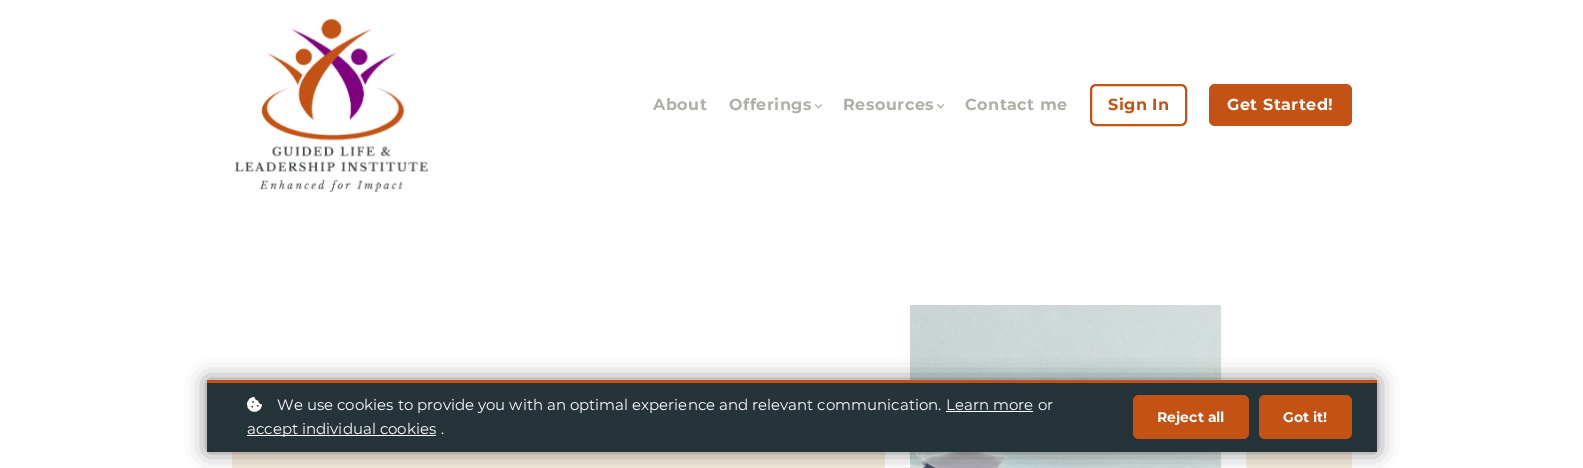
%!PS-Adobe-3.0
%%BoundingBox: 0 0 1583 468
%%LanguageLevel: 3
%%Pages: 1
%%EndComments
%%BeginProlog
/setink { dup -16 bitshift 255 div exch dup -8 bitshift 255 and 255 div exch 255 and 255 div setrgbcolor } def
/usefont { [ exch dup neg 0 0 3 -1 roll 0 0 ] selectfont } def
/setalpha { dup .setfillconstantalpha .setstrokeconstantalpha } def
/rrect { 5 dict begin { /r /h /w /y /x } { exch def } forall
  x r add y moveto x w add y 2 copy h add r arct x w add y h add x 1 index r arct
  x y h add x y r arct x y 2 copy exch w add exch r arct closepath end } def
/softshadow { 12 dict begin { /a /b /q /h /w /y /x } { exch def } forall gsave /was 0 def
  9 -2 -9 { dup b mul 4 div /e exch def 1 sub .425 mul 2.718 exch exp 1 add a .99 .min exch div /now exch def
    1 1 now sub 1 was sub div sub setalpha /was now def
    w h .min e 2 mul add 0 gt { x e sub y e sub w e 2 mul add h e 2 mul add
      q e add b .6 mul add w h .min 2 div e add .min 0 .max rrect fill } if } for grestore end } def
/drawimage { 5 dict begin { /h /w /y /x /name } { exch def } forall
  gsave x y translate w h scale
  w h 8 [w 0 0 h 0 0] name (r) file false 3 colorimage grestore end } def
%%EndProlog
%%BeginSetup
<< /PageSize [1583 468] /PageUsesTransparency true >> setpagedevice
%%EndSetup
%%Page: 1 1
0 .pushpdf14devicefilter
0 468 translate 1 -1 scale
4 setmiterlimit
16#FFFFFF setink
0 0 1583 468 rectfill
(img1.raw) 234 18 194 174 drawimage
/Montserrat-Bold 16 usefont
16#B0AFA7 setink
653 110 moveto 0.5 0 (About) ashow
729 110 moveto 0.5 0 (Offerings) ashow
822 105 moveto 818.5 108.5 lineto 818 107.5 lineto 821.5 104 lineto closepath fill
819 107.5 moveto 818.5 108.5 lineto 815 105 lineto 815.5 104 lineto closepath fill
843 110 moveto 0.5 0 (Resources) ashow
944 105 moveto 940.5 108.5 lineto 940 107.5 lineto 943.5 104 lineto closepath fill
941.5 107.5 moveto 940.5 108.5 lineto 937 105 lineto 937.5 104 lineto closepath fill
965 110 moveto 0.5 0 (Contact me) ashow
16#C35214 setink
2 setlinewidth
1091 85 95 40 5 rrect stroke
1108 110 moveto 0.5 0 (Sign In) ashow
1209 84 143 42 6 rrect fill
16#FFFFFF setink
1227 110 moveto 0.5 0 (Get Started!) ashow
16#F6ECDA setink
232 452 1120 16 rectfill
16#FFFFFF setink
25 setlinewidth
897.5 292.5 336 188 rectstroke
(img2.raw) 910 305 311 163 drawimage
16#000000 setink
207 380 1170 72 0 10 0.5 softshadow
16#253439 setink
207 383 1170 69 rectfill
16#C35214 setink
207 380 1170 3 rectfill
(img3.raw) 247 396 15 16 drawimage
/Montserrat-Regular 15 usefont
16#FFFFFF setink
277 410 moveto (We use cookies to provide you with an optimal experience and relevant communication.) show
946 410 moveto (Learn more) show
946 411 87 1 rectfill
1038 410 moveto (or) show
247 435 189 1 rectfill
247 434 moveto (accept individual cookies) show
441 434 moveto (.) show
16#C35214 setink
1133 395 116 44 6 rrect fill
/Montserrat-Bold 14 usefont
16#FFFFFF setink
1157 422 moveto (Reject all) show
16#C35214 setink
1259 395 93 44 6 rrect fill
16#FFFFFF setink
1283 422 moveto (Got it!) show
.poppdf14devicefilter showpage
%%EOF
